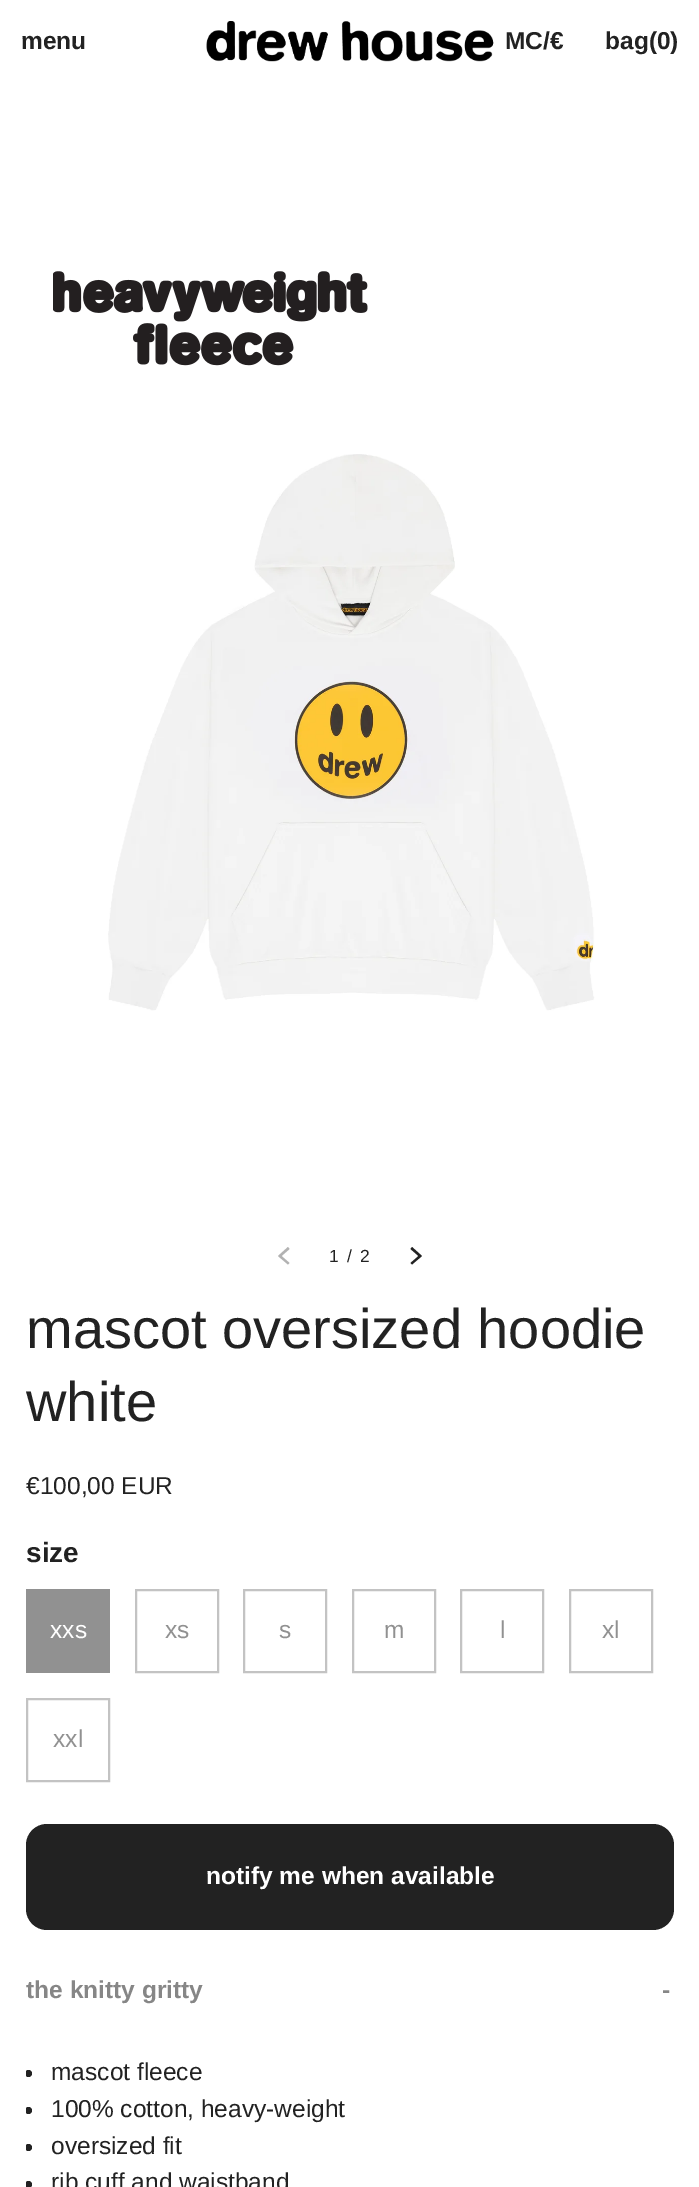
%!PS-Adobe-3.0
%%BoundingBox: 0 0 699 2187
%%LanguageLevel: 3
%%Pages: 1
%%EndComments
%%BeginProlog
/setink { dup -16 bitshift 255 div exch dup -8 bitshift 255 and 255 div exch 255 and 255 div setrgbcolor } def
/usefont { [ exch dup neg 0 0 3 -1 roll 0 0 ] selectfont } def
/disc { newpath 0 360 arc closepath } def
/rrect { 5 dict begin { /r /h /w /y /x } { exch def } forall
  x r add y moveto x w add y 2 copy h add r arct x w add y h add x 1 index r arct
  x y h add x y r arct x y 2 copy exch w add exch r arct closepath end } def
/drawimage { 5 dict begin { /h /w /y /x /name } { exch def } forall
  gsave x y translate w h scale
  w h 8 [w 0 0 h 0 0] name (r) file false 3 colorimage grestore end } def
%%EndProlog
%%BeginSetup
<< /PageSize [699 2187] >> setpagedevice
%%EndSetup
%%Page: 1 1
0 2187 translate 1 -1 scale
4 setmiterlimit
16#FFFFFF setink
0 0 699 2187 rectfill
/LiberationSans-Bold 24.5 usefont
16#222222 setink
21 49 moveto (menu) show
(img1.raw) 206 21 288 41 drawimage
505 49 moveto (MC/€) show
605 49 moveto (bag\(0\)) show
(img2.raw) 53 271 315 95 drawimage
(img3.raw) 108 454 487 557 drawimage
16#B2B2B2 setink
278 1256 moveto 288 1247 lineto 289.5 1249 lineto 281.5 1256 lineto 289.5 1263 lineto 288 1264.5 lineto closepath fill
/LiberationSans-Regular 17.5 usefont
16#222222 setink
329 1262 moveto 1.75 0 (1 / 2) ashow
422 1256 moveto 412 1264.5 lineto 410.5 1263 lineto 418.5 1256 lineto 410.5 1249 lineto 412 1247 lineto closepath fill
/LiberationSans-Regular 56 usefont
26 1348 moveto (mascot oversized hoodie) show
26 1421 moveto (white) show
/LiberationSans-Regular 24.5 usefont
26 1494 moveto (€100,00 EUR) show
/LiberationSans-Bold 28 usefont
26 1562 moveto (size) show
16#919191 setink
26 1589 84 84 rectfill
/LiberationSans-Regular 24.5 usefont
16#FFFFFF setink
50 1638 moveto (xxs) show
16#C3C3C3 setink
2 setlinewidth
136 1590 82 82 rectstroke
16#919191 setink
165 1638 moveto (xs) show
16#C3C3C3 setink
244 1590 82 82 rectstroke
16#919191 setink
279 1638 moveto (s) show
16#C3C3C3 setink
353 1590 82 82 rectstroke
16#919191 setink
384 1638 moveto (m) show
16#C3C3C3 setink
461 1590 82 82 rectstroke
16#919191 setink
500 1638 moveto (l) show
16#C3C3C3 setink
570 1590 82 82 rectstroke
16#919191 setink
602 1638 moveto (xl) show
16#C3C3C3 setink
27 1699 82 82 rectstroke
16#919191 setink
53 1747 moveto (xxl) show
16#222222 setink
26 1824 648 106 21 rrect fill
/LiberationSans-Bold 24.5 usefont
16#FFFFFF setink
206 1884 moveto (notify me when available) show
16#868686 setink
26 1998 moveto (the knitty gritty) show
662 1998 moveto (-) show
gsave
26 2030 648 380 rectclip
16#222222 setink
28.5 2073.5 3.5 disc fill
grestore
/LiberationSans-Regular 24.5 usefont
16#222222 setink
51 2080 moveto (mascot fleece) show
gsave
26 2030 648 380 rectclip
28.5 2110.5 3.5 disc fill
grestore
51 2117 moveto (100% cotton, heavy-weight) show
gsave
26 2030 648 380 rectclip
28.5 2147.5 3.5 disc fill
grestore
51 2154 moveto (oversized fit) show
gsave
26 2030 648 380 rectclip
28.5 2184.5 3.5 disc fill
grestore
51 2190 moveto (rib cuff and waistband) show
showpage
%%EOF
